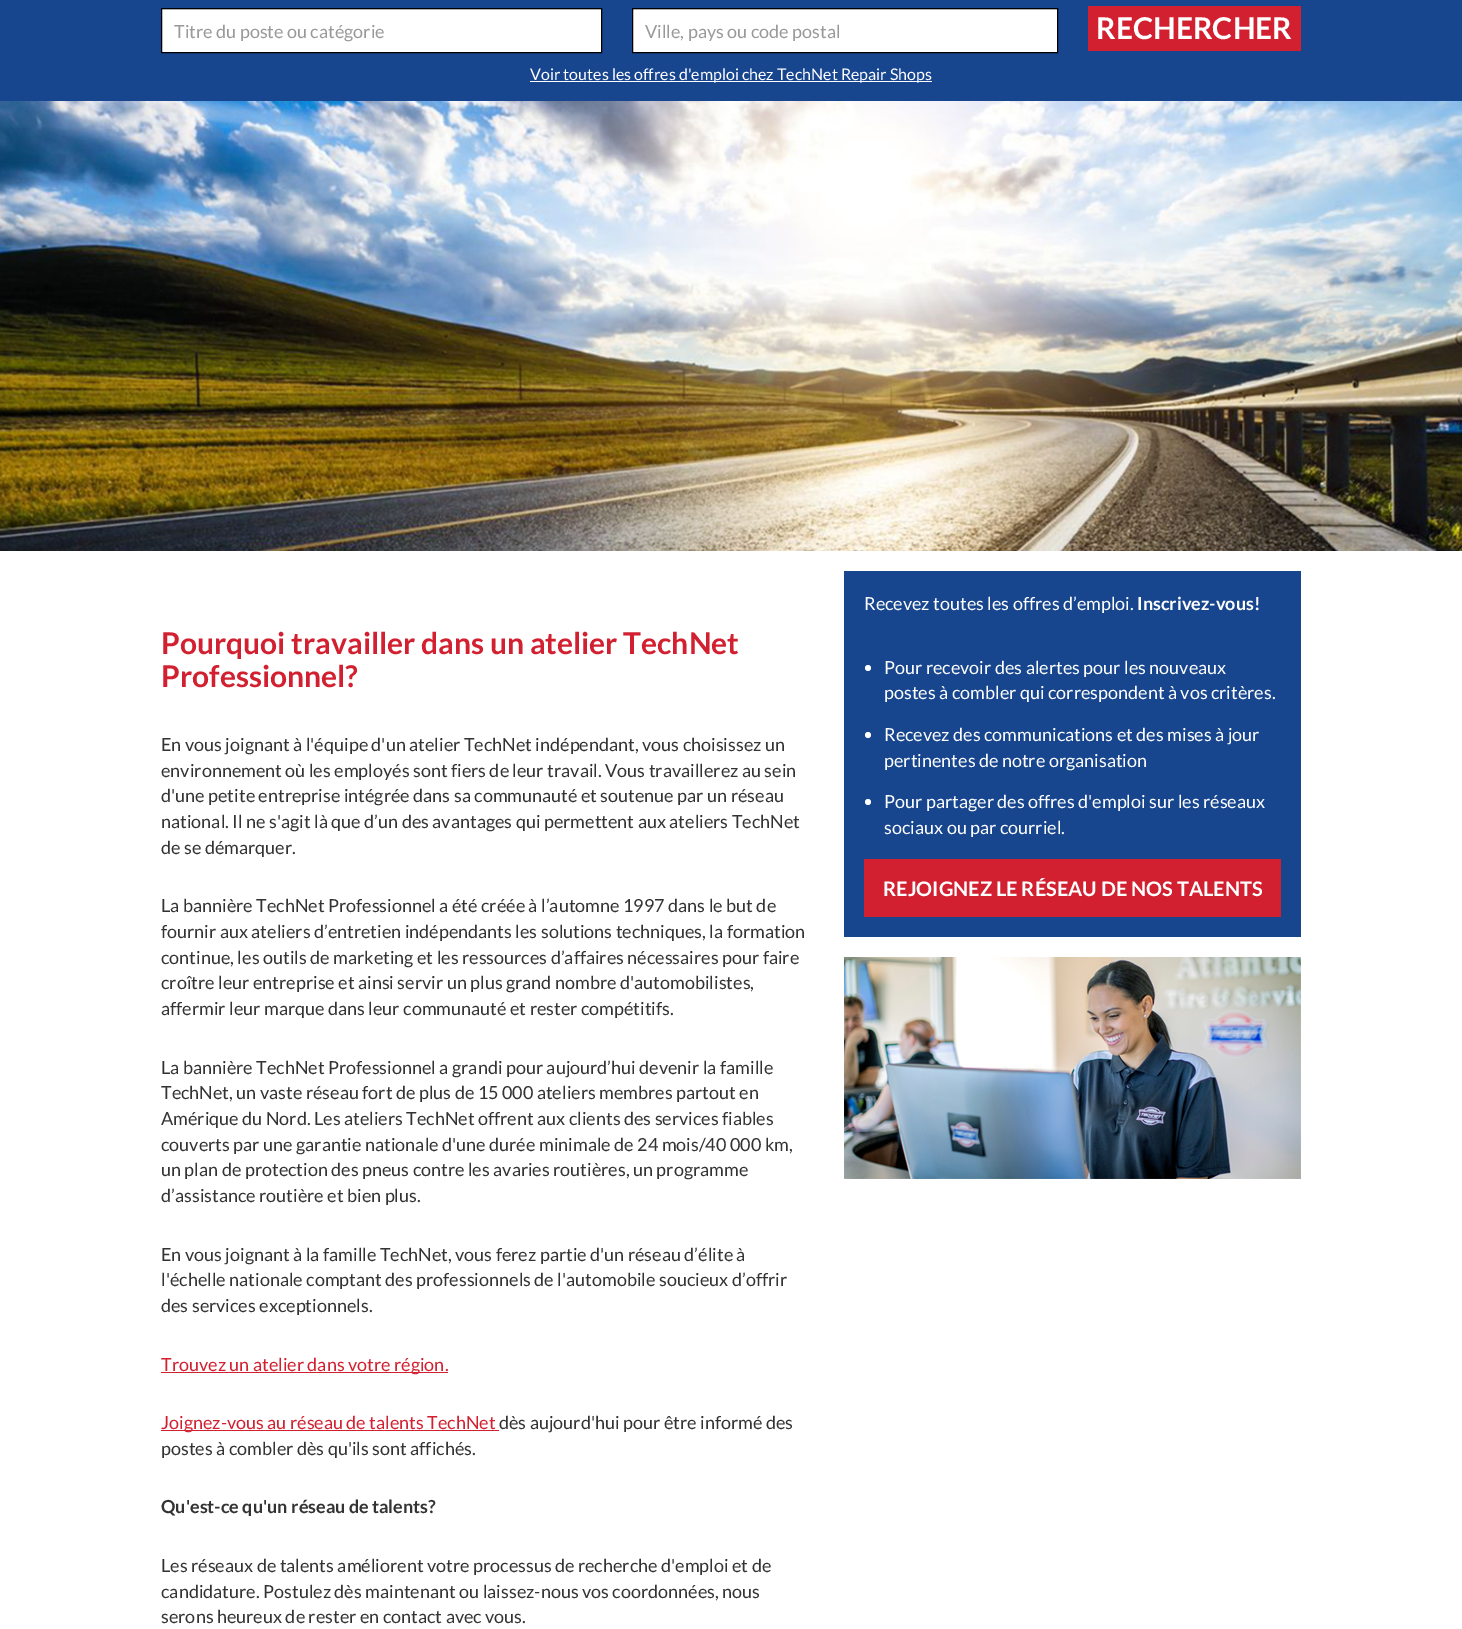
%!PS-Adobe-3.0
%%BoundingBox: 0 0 1462 1629
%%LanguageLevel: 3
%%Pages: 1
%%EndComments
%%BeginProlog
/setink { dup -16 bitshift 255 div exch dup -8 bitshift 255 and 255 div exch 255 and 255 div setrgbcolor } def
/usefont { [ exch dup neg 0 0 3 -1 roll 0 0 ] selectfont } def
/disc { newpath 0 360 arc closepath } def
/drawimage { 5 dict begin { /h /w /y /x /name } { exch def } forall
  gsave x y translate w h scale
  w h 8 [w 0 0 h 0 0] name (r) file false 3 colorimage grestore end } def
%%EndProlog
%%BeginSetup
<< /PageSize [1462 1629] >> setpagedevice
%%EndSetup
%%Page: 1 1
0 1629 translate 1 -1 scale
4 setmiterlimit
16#FFFFFF setink
0 0 1462 1629 rectfill
[
    [0 0 1462 101 16#17468F]
    [162 10 439 42 16#FFFFFF]
    [162 9 439 1 16#ECECEC]
] { aload pop setink rectfill } forall
16#000000 setink
161.5 8.5 440 44 rectstroke
/Lato-Regular 18 usefont
16#999999 setink
174 38 moveto (Titre du poste ou catégorie) show
16#FFFFFF setink
633 10 424 42 rectfill
16#ECECEC setink
633 9 424 1 rectfill
16#000000 setink
632.5 8.5 425 44 rectstroke
16#999999 setink
645 38 moveto (Ville, pays ou code postal) show
16#D22030 setink
1088 6 213 45 rectfill
/Lato-Bold 30 usefont
16#FFFFFF setink
1096 39 moveto (RECHERCHER) show
530 81 402 1 rectfill
/Lato-Regular 16 usefont
530 80 moveto (Voir toutes les offres d'emploi chez TechNet Repair Shops) show
(img1.raw) 0 101 1462 450 drawimage
/Lato-Bold 30 usefont
16#D22030 setink
161 654 moveto (Pourquoi travailler dans un atelier TechNet) show
161 687 moveto (Professionnel?) show
/Lato-Regular 18 usefont
16#333333 setink
[
    [(En vous joignant à l'équipe d'un atelier TechNet indépendant, vous choisissez un) 161 751]
    [(environnement où les employés sont fiers de leur travail. Vous travaillerez au sein) 161 777]
    [(d'une petite entreprise intégrée dans sa communauté et soutenue par un réseau) 161 802]
    [(national. Il ne s'agit là que d’un des avantages qui permettent aux ateliers TechNet) 161 828]
    [(de se démarquer.) 161 854]
    [(La bannière TechNet Professionnel a été créée à l’automne 1997 dans le but de) 161 912]
    [(fournir aux ateliers d’entretien indépendants les solutions techniques, la formation) 161 938]
    [(continue, les outils de marketing et les ressources d’affaires nécessaires pour faire) 161 964]
    [(croître leur entreprise et ainsi servir un plus grand nombre d'automobilistes,) 161 989]
    [(affermir leur marque dans leur communauté et rester compétitifs.) 161 1015]
    [(La bannière TechNet Professionnel a grandi pour aujourd’hui devenir la famille) 161 1074]
    [(TechNet, un vaste réseau fort de plus de 15 000 ateliers membres partout en) 161 1099]
    [(Amérique du Nord. Les ateliers TechNet offrent aux clients des services fiables) 161 1125]
    [(couverts par une garantie nationale d'une durée minimale de 24 mois/40 000 km,) 161 1151]
    [(un plan de protection des pneus contre les avaries routières, un programme) 161 1176]
    [(d’assistance routière et bien plus.) 161 1202]
    [(En vous joignant à la famille TechNet, vous ferez partie d'un réseau d’élite à) 161 1261]
    [(l'échelle nationale comptant des professionnels de l'automobile soucieux d’offrir) 161 1286]
    [(des services exceptionnels.) 161 1312]
] { aload pop moveto show } forall
16#D22030 setink
161 1372 287 1 rectfill
161 1371 moveto (Trouvez un atelier dans votre région.) show
161 1430 338 1 rectfill
161 1429 moveto (Joignez-vous au réseau de talents TechNet) show
16#333333 setink
499 1429 moveto (dès aujourd'hui pour être informé des) show
161 1455 moveto (postes à combler dès qu'ils sont affichés.) show
/Lato-Bold 18 usefont
161 1513 moveto (Qu'est-ce qu'un réseau de talents?) show
/Lato-Regular 18 usefont
[
    [(Les réseaux de talents améliorent votre processus de recherche d'emploi et de) 161 1572]
    [(candidature. Postulez dès maintenant ou laissez-nous vos coordonnées, nous) 161 1598]
    [(serons heureux de rester en contact avec vous.) 161 1623]
] { aload pop moveto show } forall
16#17468F setink
844 571 457 366 rectfill
16#FFFFFF setink
864 610 moveto (Recevez toutes les offres d’emploi.) show
/Lato-Bold 18 usefont
1137 610 moveto (Inscrivez-vous!) show
868 668 3 disc fill
/Lato-Regular 18 usefont
884 674 moveto (Pour recevoir des alertes pour les nouveaux) show
884 699 moveto (postes à combler qui correspondent à vos critères.) show
868 735 3 disc fill
884 741 moveto (Recevez des communications et des mises à jour) show
884 767 moveto (pertinentes de notre organisation) show
868 802 3 disc fill
884 808 moveto (Pour partager des offres d'emploi sur les réseaux) show
884 834 moveto (sociaux ou par courriel.) show
16#D22030 setink
864 859 417 58 rectfill
/Lato-Bold 20 usefont
16#FFFFFF setink
883 896 moveto (REJOIGNEZ LE RÉSEAU DE NOS TALENTS) show
(img2.raw) 844 957 457 222 drawimage
showpage
%%EOF
